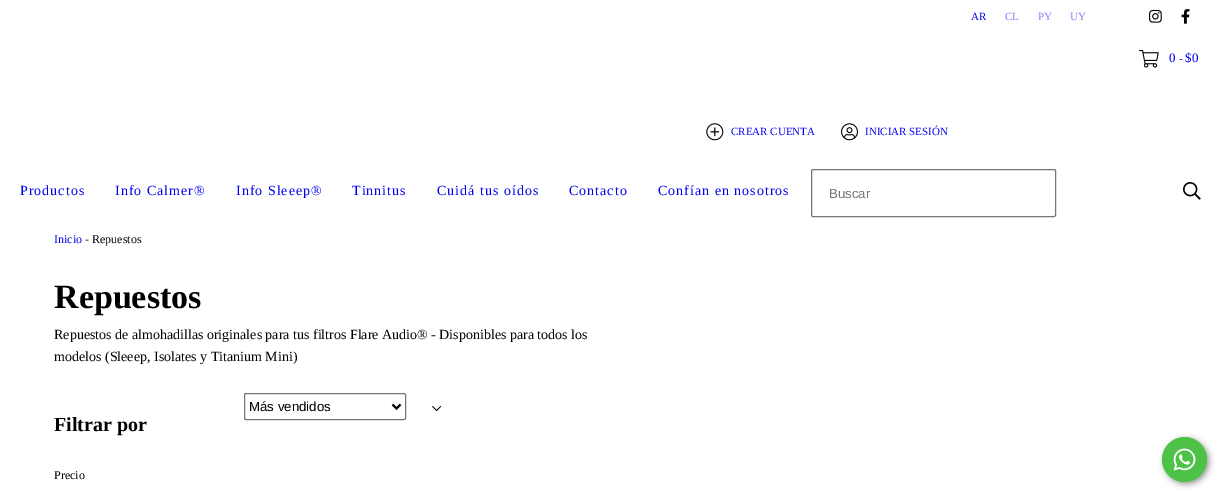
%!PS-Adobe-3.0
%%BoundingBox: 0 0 1217 492
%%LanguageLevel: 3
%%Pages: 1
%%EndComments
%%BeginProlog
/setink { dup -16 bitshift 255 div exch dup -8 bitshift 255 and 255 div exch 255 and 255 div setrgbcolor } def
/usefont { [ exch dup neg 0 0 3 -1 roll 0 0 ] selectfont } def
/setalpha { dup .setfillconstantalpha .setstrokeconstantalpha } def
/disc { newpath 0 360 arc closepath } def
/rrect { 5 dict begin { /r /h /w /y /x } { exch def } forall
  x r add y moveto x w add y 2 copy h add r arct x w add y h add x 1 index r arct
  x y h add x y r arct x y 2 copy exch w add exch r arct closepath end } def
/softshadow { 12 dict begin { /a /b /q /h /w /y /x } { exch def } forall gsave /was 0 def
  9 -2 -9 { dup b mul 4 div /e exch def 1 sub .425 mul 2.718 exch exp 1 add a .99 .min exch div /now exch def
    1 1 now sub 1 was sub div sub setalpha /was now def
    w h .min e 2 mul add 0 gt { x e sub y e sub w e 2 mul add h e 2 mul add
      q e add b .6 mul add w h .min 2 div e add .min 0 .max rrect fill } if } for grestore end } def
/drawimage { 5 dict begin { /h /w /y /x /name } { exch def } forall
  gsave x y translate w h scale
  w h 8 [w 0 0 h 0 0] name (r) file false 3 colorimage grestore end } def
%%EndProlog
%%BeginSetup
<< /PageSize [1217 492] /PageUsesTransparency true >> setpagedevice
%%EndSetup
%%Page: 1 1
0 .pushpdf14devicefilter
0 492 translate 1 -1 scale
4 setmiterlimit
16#FFFFFF setink
0 0 1217 492 rectfill
/LiberationSerif-Regular 11 usefont
16#0000EE setink
971 20 moveto (AR) show
16#8080F7 setink
[
    [(CL) 1005 20]
    [(PY) 1038 20]
    [(UY) 1070 20]
] { aload pop moveto show } forall
(img1.raw) 1149 9 13 14 drawimage
(img2.raw) 1181 9 9 15 drawimage
(img3.raw) 1139 50 20 18 drawimage
/LiberationSerif-Regular 13 usefont
16#0000EE setink
1169 62 moveto (0) show
/LiberationSerif-Regular 11 usefont
1179 62 moveto (-) show
/LiberationSerif-Regular 13 usefont
1185 62 moveto ($0) show
(img4.raw) 706 123 18 18 drawimage
/LiberationSerif-Regular 11 usefont
731 135 moveto (CREAR CUENTA) show
(img5.raw) 841 123 17 18 drawimage
865 135 moveto (INICIAR SESIÓN) show
/LiberationSerif-Regular 14 usefont
20 195 moveto 1 0 (Productos) ashow
115 195 moveto 1 0 (Info Calmer®) ashow
236 195 moveto 1 0 (Info Sleeep®) ashow
352 195 moveto 1 0 (Tinnitus) ashow
437 195 moveto 1 0 (Cuidá tus oídos) ashow
569 195 moveto 1 0 (Contacto) ashow
658 195 moveto 1 0 (Confían en nosotros) ashow
16#767676 setink
811.5 169.5 244 47 1.5 rrect stroke
/LiberationSans-Regular 13.25 usefont
16#757575 setink
829 198 moveto (Buscar) show
(img6.raw) 1183 182 18 18 drawimage
/LiberationSerif-Regular 12 usefont
16#0000EE setink
54 243 moveto (Inicio) show
16#000000 setink
85 243 moveto (- Repuestos) show
/LiberationSerif-Bold 34 usefont
54 308 moveto (Repuestos) show
/LiberationSerif-Regular 14 usefont
54 339 moveto (Repuestos de almohadillas originales para tus filtros Flare Audio® - Disponibles para todos los) show
54 361 moveto (modelos \(Sleeep, Isolates y Titanium Mini\)) show
16#767676 setink
244.5 393.5 161 26 1.5 rrect stroke
16#000000 setink
2 setlinewidth
392.5 404.5 moveto 396.5 408.5 lineto 400.5 404.5 lineto stroke
/LiberationSans-Regular 13.25 usefont
249 411 moveto (Más vendidos) show
(img7.raw) 432 406 10 6 drawimage
/LiberationSerif-Bold 20 usefont
54 431 moveto (Filtrar por) show
/LiberationSerif-Regular 12 usefont
54 479 moveto (Precio) show
1164 439 45 45 22.5 3 0.4 softshadow
16#4DC247 setink
1184.5 459.5 22.5 disc fill
(img8.raw) 1173 448 23 23 drawimage
.poppdf14devicefilter showpage
%%EOF
